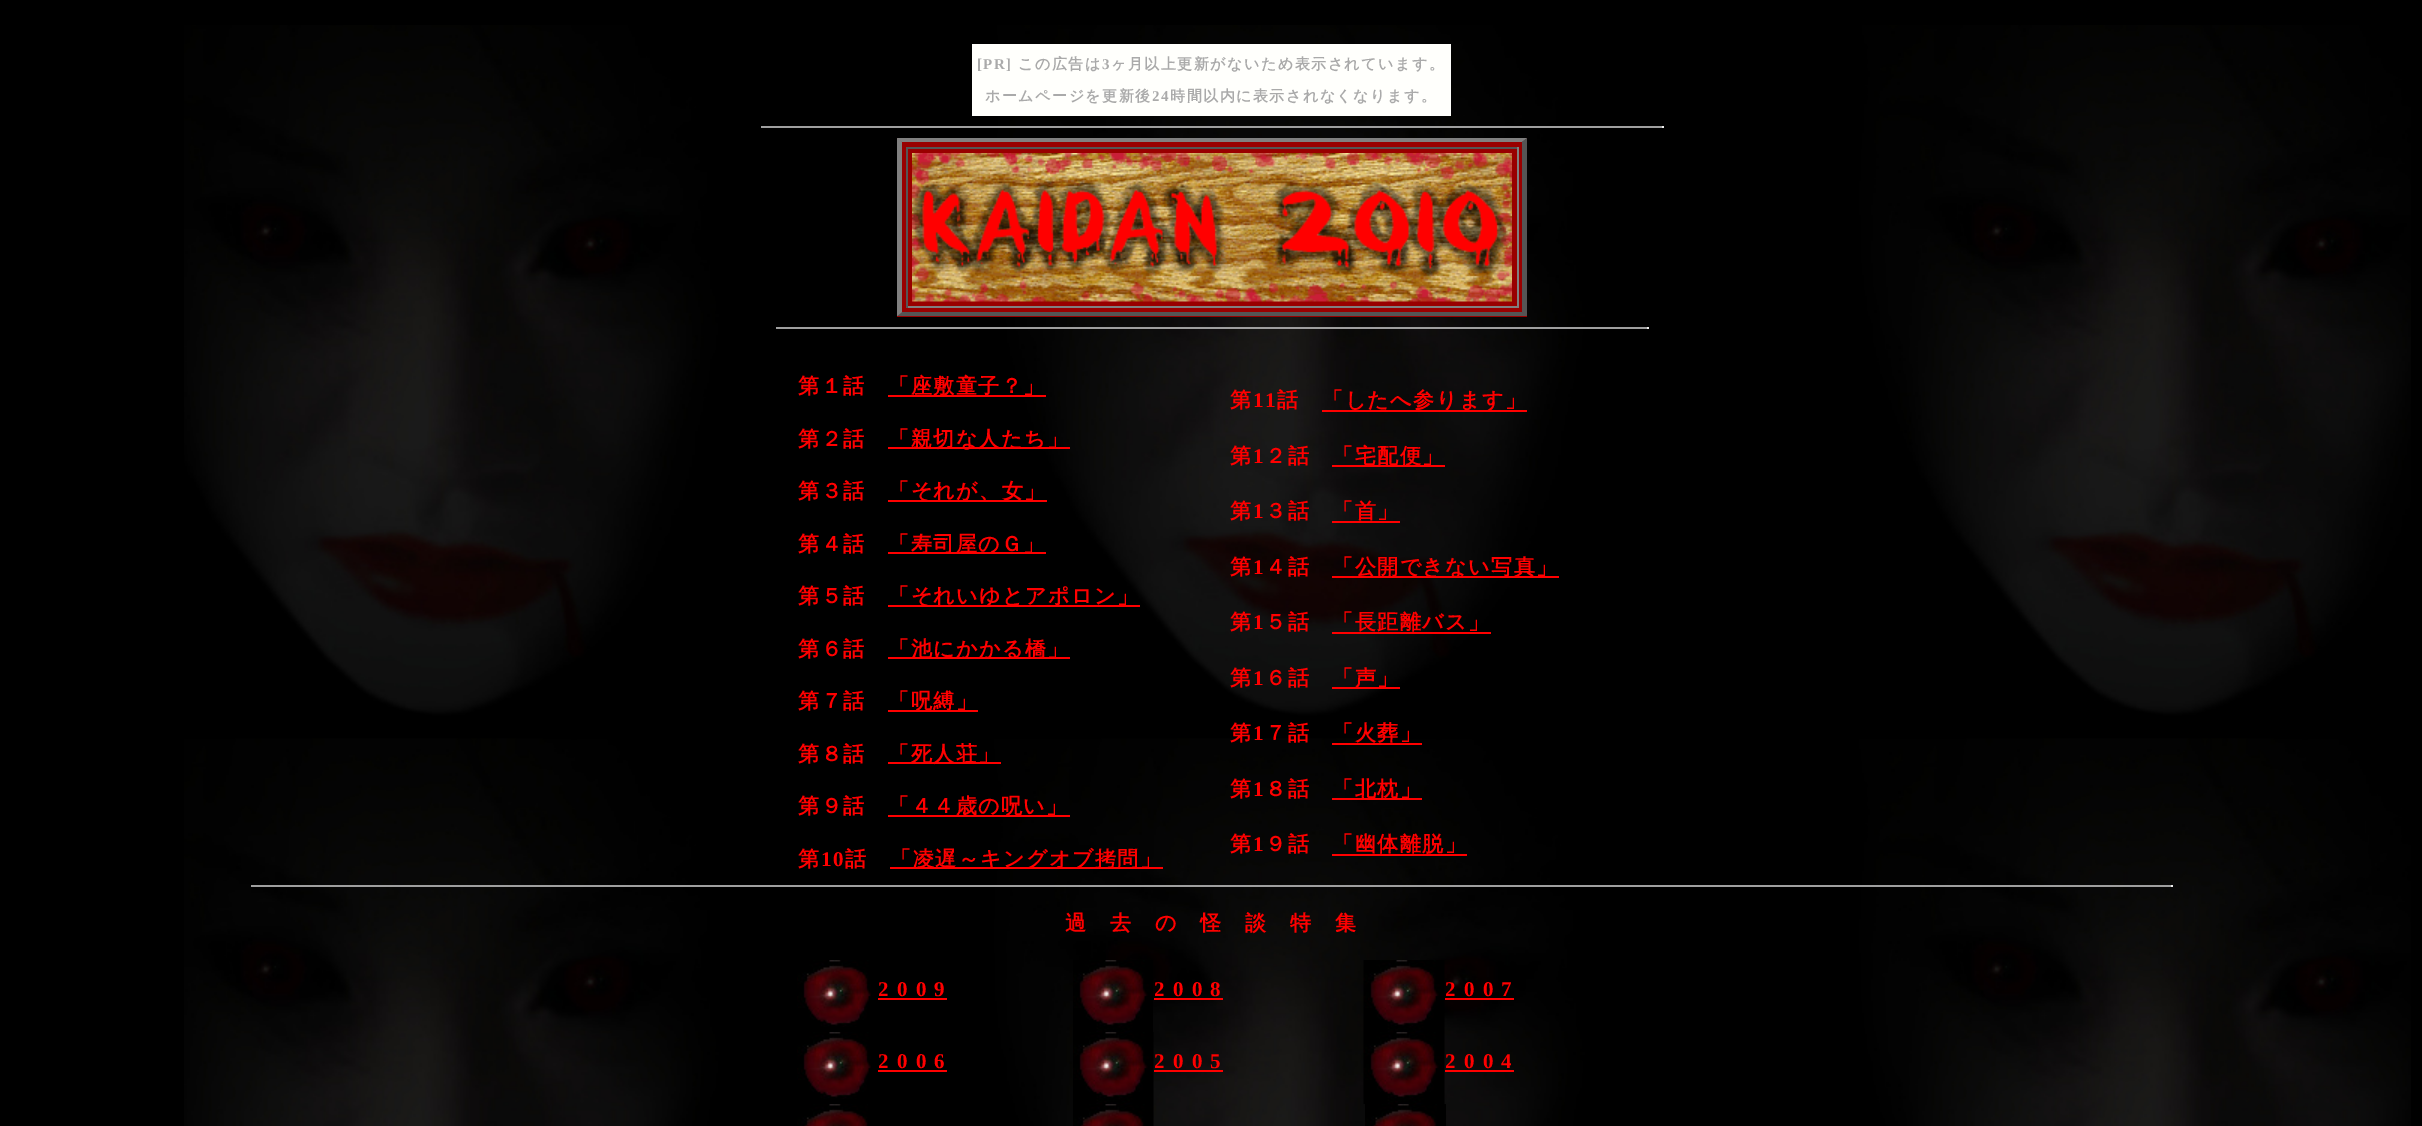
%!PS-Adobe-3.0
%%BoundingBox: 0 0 2422 1126
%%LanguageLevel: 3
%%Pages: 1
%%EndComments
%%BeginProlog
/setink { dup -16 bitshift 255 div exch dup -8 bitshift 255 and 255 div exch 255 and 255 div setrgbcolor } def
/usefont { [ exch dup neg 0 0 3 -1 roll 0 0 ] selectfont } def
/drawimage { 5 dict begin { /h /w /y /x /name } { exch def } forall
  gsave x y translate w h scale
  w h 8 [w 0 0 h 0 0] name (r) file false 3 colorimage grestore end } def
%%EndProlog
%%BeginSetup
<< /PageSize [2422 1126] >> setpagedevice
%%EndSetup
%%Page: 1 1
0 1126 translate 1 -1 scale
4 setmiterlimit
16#000000 setink
0 0 2422 1126 rectfill
(img1.raw) 184 25 2227 1101 drawimage
16#FFFFFC setink
972 44 479 72 rectfill
/LiberationSerif-Bold 15 usefont
16#AAAAAA setink
977 69 moveto 1.5 0 ([PR]) ashow
/WenQuanYiZenHei-Bold 15 usefont
1018 69 moveto 1.5 0 (この広告は) ashow
/LiberationSerif-Bold 15 usefont
1102 69 moveto 1.5 0 (3) ashow
/WenQuanYiZenHei-Bold 15 usefont
1111 69 moveto 1.5 0 (ヶ月以上更新がないため表示されています。) ashow
985 101 moveto 1.5 0 (ホームページを更新後) ashow
/LiberationSerif-Bold 15 usefont
1152 101 moveto 1.5 0 (24) ashow
/WenQuanYiZenHei-Bold 15 usefont
1170 101 moveto 1.5 0 (時間以内に表示されなくなります。) ashow
[
    [761 126 903 2 16#9F9F9F]
    [1662 126 2 2 16#EEEEEE]
    [897 138 630 179 16#990000]
] { aload pop setink rectfill } forall
16#808080 setink
897 138 moveto 1527 138 lineto 1522 142 lineto 902 142 lineto closepath fill
16#555555 setink
1527 138 moveto 1527 316 lineto 1522 312 lineto 1522 142 lineto closepath fill
1527 316 moveto 897 316 lineto 902 312 lineto 1522 312 lineto closepath fill
16#808080 setink
897 316 moveto 897 138 lineto 902 142 lineto 902 312 lineto closepath fill
[
    [906 147 612 2 16#555555]
    [1517 147 2 161 16#808080]
    [906 306 612 2 16#808080]
    [906 147 2 161 16#555555]
] { aload pop setink rectfill } forall
(img2.raw) 912 153 600 149 drawimage
16#9F9F9F setink
776 327 873 2 rectfill
16#EEEEEE setink
1647 327 2 2 rectfill
/WenQuanYiZenHei-Bold 21 usefont
16#FF0000 setink
798 393 moveto 1.5 0 (第１話) ashow
888 395 158 2 rectfill
888 393 moveto 1.5 0 (「座敷童子？」) ashow
798 446 moveto 1.5 0 (第２話) ashow
888 447 182 2 rectfill
888 446 moveto 1.5 0 (「親切な人たち」) ashow
798 498 moveto 1.5 0 (第３話) ashow
888 500 159 2 rectfill
888 498 moveto 1.5 0 (「それが、女」) ashow
798 551 moveto 1.5 0 (第４話) ashow
888 552 158 2 rectfill
888 551 moveto 1.5 0 (「寿司屋のＧ」) ashow
798 603 moveto 1.5 0 (第５話) ashow
888 605 252 2 rectfill
888 603 moveto 1.5 0 (「それいゆとアポロン」) ashow
798 656 moveto 1.5 0 (第６話) ashow
888 657 182 2 rectfill
888 656 moveto 1.5 0 (「池にかかる橋」) ashow
798 708 moveto 1.5 0 (第７話) ashow
888 710 90 2 rectfill
888 708 moveto 1.5 0 (「呪縛」) ashow
798 761 moveto 1.5 0 (第８話) ashow
888 762 113 2 rectfill
888 761 moveto 1.5 0 (「死人荘」) ashow
798 813 moveto 1.5 0 (第９話) ashow
888 815 182 2 rectfill
888 813 moveto 1.5 0 (「４４歳の呪い」) ashow
798 866 moveto 1.5 0 (第) ashow
/LiberationSerif-Bold 21 usefont
821 866 moveto 1.5 0 (10) ashow
/WenQuanYiZenHei-Bold 21 usefont
845 866 moveto 1.5 0 (話) ashow
890 867 273 2 rectfill
890 866 moveto 1.5 0 (「凌遅～キングオブ拷問」) ashow
1230 407 moveto 1.5 0 (第) ashow
/LiberationSerif-Bold 21 usefont
1253 407 moveto 1.5 0 (11) ashow
/WenQuanYiZenHei-Bold 21 usefont
1277 407 moveto 1.5 0 (話) ashow
1322 410 205 2 rectfill
1322 407 moveto 1.5 0 (「したへ参ります」) ashow
1230 463 moveto 1.5 0 (第) ashow
/LiberationSerif-Bold 21 usefont
1253 463 moveto 1.5 0 (1) ashow
/WenQuanYiZenHei-Bold 21 usefont
1265 463 moveto 1.5 0 (２話) ashow
1332 465 113 2 rectfill
1332 463 moveto 1.5 0 (「宅配便」) ashow
1230 518 moveto 1.5 0 (第) ashow
/LiberationSerif-Bold 21 usefont
1253 518 moveto 1.5 0 (1) ashow
/WenQuanYiZenHei-Bold 21 usefont
1265 518 moveto 1.5 0 (３話) ashow
1332 518 moveto 1.5 0 (「首」) ashow
1332 521 68 2 rectfill
1230 574 moveto 1.5 0 (第) ashow
/LiberationSerif-Bold 21 usefont
1253 574 moveto 1.5 0 (1) ashow
/WenQuanYiZenHei-Bold 21 usefont
1265 574 moveto 1.5 0 (４話) ashow
1332 576 227 2 rectfill
1332 574 moveto 1.5 0 (「公開できない写真」) ashow
1230 629 moveto 1.5 0 (第) ashow
/LiberationSerif-Bold 21 usefont
1253 629 moveto 1.5 0 (1) ashow
/WenQuanYiZenHei-Bold 21 usefont
1265 629 moveto 1.5 0 (５話) ashow
1332 629 moveto 1.5 0 (「長距離バス」) ashow
1332 632 159 2 rectfill
1230 685 moveto 1.5 0 (第) ashow
/LiberationSerif-Bold 21 usefont
1253 685 moveto 1.5 0 (1) ashow
/WenQuanYiZenHei-Bold 21 usefont
1265 685 moveto 1.5 0 (６話) ashow
1332 687 68 2 rectfill
1332 685 moveto 1.5 0 (「声」) ashow
1230 740 moveto 1.5 0 (第) ashow
/LiberationSerif-Bold 21 usefont
1253 740 moveto 1.5 0 (1) ashow
/WenQuanYiZenHei-Bold 21 usefont
1265 740 moveto 1.5 0 (７話) ashow
1332 740 moveto 1.5 0 (「火葬」) ashow
1332 743 90 2 rectfill
1230 796 moveto 1.5 0 (第) ashow
/LiberationSerif-Bold 21 usefont
1253 796 moveto 1.5 0 (1) ashow
/WenQuanYiZenHei-Bold 21 usefont
1265 796 moveto 1.5 0 (８話) ashow
1332 798 90 2 rectfill
1332 796 moveto 1.5 0 (「北枕」) ashow
1230 851 moveto 1.5 0 (第) ashow
/LiberationSerif-Bold 21 usefont
1253 851 moveto 1.5 0 (1) ashow
/WenQuanYiZenHei-Bold 21 usefont
1265 851 moveto 1.5 0 (９話) ashow
1332 851 moveto 1.5 0 (「幽体離脱」) ashow
[
    [1332 854 135 2 16#FF0000]
    [251 885 1921 2 16#9F9F9F]
    [2171 885 2 2 16#EEEEEE]
] { aload pop setink rectfill } forall
16#FF0000 setink
1065 930 moveto 1.5 0 (過　去　の　怪　談　特　集) ashow
(img3.raw) 797 960 74 67 drawimage
/LiberationSerif-Bold 21 usefont
878 996 moveto 1.5 0 (2 0 0 9) ashow
878 998 69 2 rectfill
(img4.raw) 1073 960 80 72 drawimage
1154 996 moveto 1.5 0 (2 0 0 8) ashow
1154 998 69 2 rectfill
(img5.raw) 1363 960 82 72 drawimage
1445 996 moveto 1.5 0 (2 0 0 7) ashow
1445 998 69 2 rectfill
(img3.raw) 797 1032 74 67 drawimage
878 1068 moveto 1.5 0 (2 0 0 6) ashow
878 1070 69 2 rectfill
(img6.raw) 1073 1032 81 72 drawimage
1154 1068 moveto 1.5 0 (2 0 0 5) ashow
1154 1070 69 2 rectfill
(img7.raw) 1363 1032 82 72 drawimage
1445 1068 moveto 1.5 0 (2 0 0 4) ashow
1445 1070 69 2 rectfill
(img8.raw) 797 1104 71 22 drawimage
(img9.raw) 1073 1104 81 22 drawimage
(img10.raw) 1365 1104 81 22 drawimage
showpage
%%EOF
